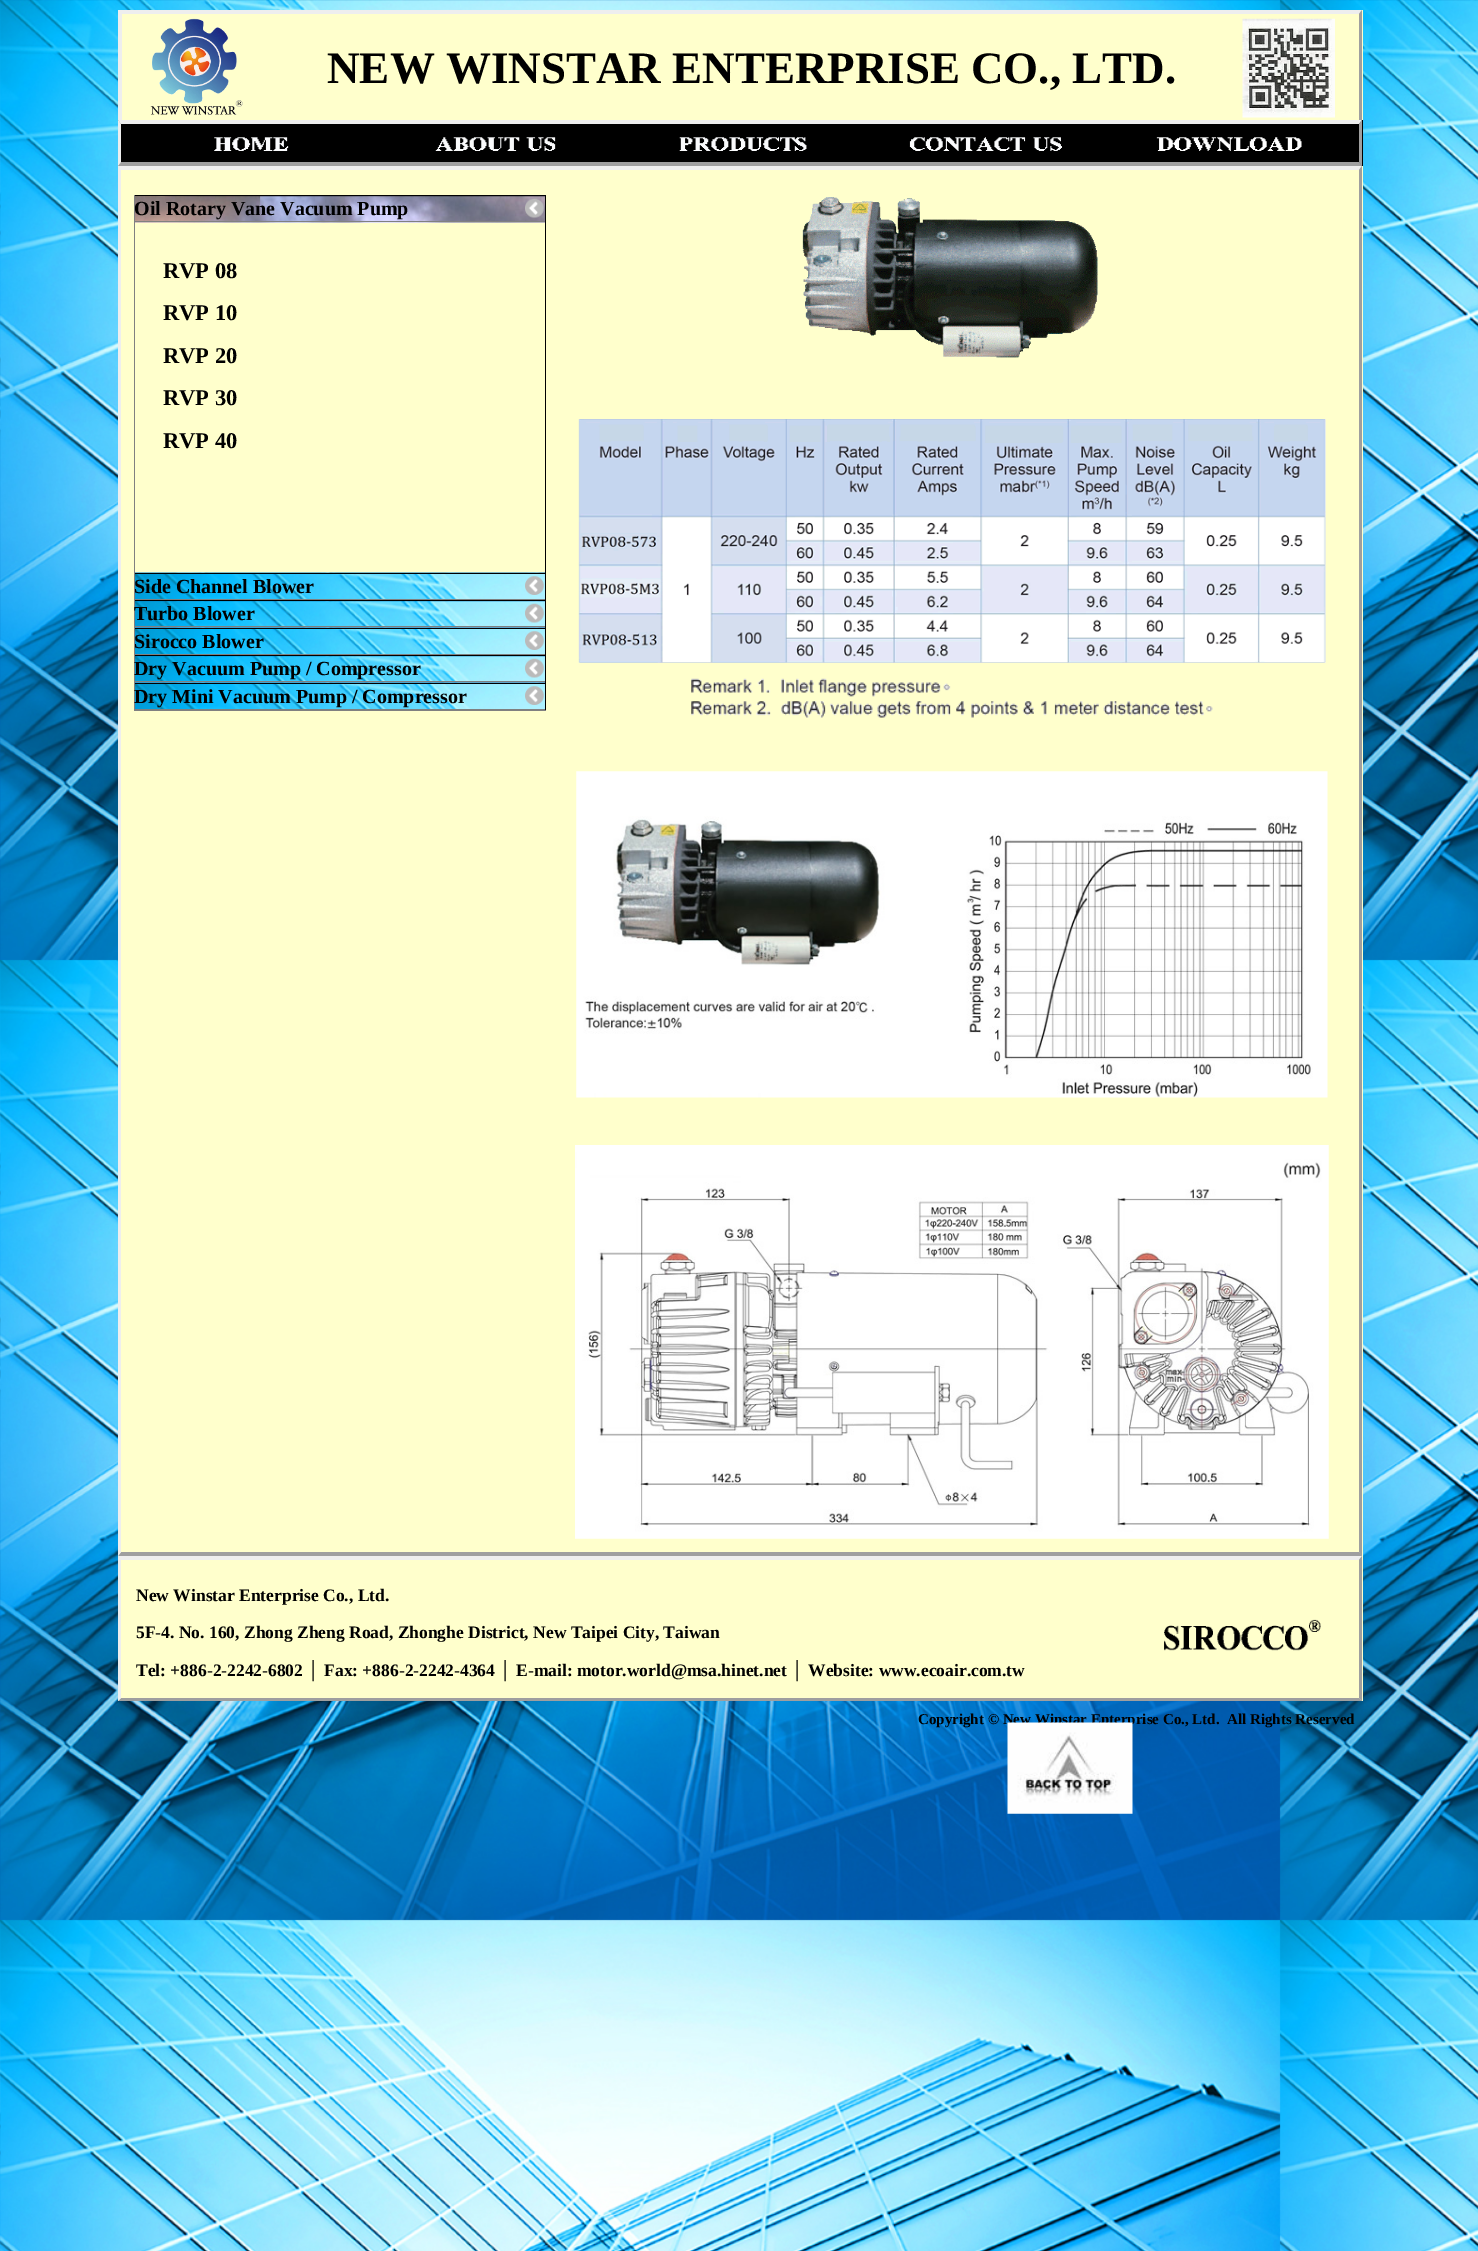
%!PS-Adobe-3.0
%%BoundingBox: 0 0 1478 2251
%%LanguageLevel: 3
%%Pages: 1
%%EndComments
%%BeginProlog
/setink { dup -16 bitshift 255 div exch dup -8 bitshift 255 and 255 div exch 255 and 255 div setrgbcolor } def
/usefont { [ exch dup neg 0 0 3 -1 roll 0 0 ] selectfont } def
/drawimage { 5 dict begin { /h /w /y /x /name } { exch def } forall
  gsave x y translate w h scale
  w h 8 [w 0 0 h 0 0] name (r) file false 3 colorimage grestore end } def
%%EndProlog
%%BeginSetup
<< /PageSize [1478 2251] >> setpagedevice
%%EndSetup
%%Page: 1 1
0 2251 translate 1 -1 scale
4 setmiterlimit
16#FFFFFF setink
0 0 1478 2251 rectfill
(img1.raw) 0 0 1478 2251 drawimage
16#FFFFCC setink
122 10 1241 110 rectfill
16#EEEEEE setink
118 10 moveto 1362 10 lineto 1359 14 lineto 121 14 lineto closepath fill
16#9F9F9F setink
1362 10 moveto 1362 120 lineto 1359 120 lineto 1359 14 lineto closepath fill
16#EEEEEE setink
118 10 4 110 rectfill
(img2.raw) 150 18 93 97 drawimage
/LiberationSerif-Bold 45 usefont
16#000000 setink
327 83 moveto (NEW WINSTAR ENTERPRISE CO., LTD.) show
(img3.raw) 1242 18 93 100 drawimage
118 120 1245 46 rectfill
16#EEEEEE setink
118 120 moveto 1362 120 lineto 1359 124 lineto 121 124 lineto closepath fill
16#9F9F9F setink
1362 120 moveto 1362 166 lineto 1359 162 lineto 1359 124 lineto closepath fill
1362 166 moveto 118 166 lineto 121 162 lineto 1359 162 lineto closepath fill
16#EEEEEE setink
118 166 moveto 118 120 lineto 121 124 lineto 121 162 lineto closepath fill
(img4.raw) 214 137 75 14 drawimage
(img5.raw) 435 137 121 14 drawimage
(img6.raw) 679 137 128 14 drawimage
(img7.raw) 909 137 153 14 drawimage
(img8.raw) 1156 137 146 14 drawimage
16#FFFFCC setink
118 166 1245 1535 rectfill
16#EEEEEE setink
118 166 moveto 1362 166 lineto 1359 170 lineto 121 170 lineto closepath fill
16#9F9F9F setink
1362 166 moveto 1362 1556 lineto 1359 1552 lineto 1359 170 lineto closepath fill
1362 1556 moveto 118 1556 lineto 121 1552 lineto 1359 1552 lineto closepath fill
16#EEEEEE setink
118 1556 moveto 118 166 lineto 121 170 lineto 121 1552 lineto closepath fill
[
    [545 195 1 516 16#000000]
    [134 710 412 1 16#808080]
    [134 195 1 516 16#808080]
    [135 222 410 1 16#EEEEEE]
] { aload pop setink rectfill } forall
(img9.raw) 135 196 410 27 drawimage
16#000000 setink
135 195 410 1 rectfill
16#808080 setink
135 221 410 1 rectfill
/LiberationSerif-Bold 20 usefont
16#000000 setink
134 215 moveto (Oil Rotary Vane Vacuum Pump) show
(img10.raw) 525 198 19 20 drawimage
/LiberationSerif-Bold 22.5 usefont
[
    [(RVP 08) 163 278]
    [(RVP 10) 163 320]
    [(RVP 20) 163 363]
    [(RVP 30) 163 405]
    [(RVP 40) 163 448]
] { aload pop moveto show } forall
(img11.raw) 135 572 410 27 drawimage
135 573 410 1 rectfill
16#808080 setink
135 599 410 1 rectfill
/LiberationSerif-Bold 20 usefont
16#000000 setink
134 593 moveto (Side Channel Blower) show
(img12.raw) 525 576 19 19 drawimage
(img13.raw) 135 601 410 27 drawimage
135 600 410 1 rectfill
16#808080 setink
135 626 410 1 rectfill
16#000000 setink
134 620 moveto (Turbo Blower) show
(img14.raw) 525 603 19 20 drawimage
(img15.raw) 135 627 410 27 drawimage
135 628 410 1 rectfill
16#808080 setink
135 654 410 1 rectfill
16#000000 setink
134 648 moveto (Sirocco Blower) show
(img12.raw) 525 631 19 19 drawimage
(img13.raw) 135 656 410 27 drawimage
135 655 410 1 rectfill
16#808080 setink
135 681 410 1 rectfill
16#000000 setink
134 675 moveto (Dry Vacuum Pump / Compressor) show
(img14.raw) 525 658 19 20 drawimage
(img15.raw) 135 682 410 27 drawimage
135 683 410 1 rectfill
16#808080 setink
135 709 410 1 rectfill
16#000000 setink
134 703 moveto (Dry Mini Vacuum Pump / Compressor) show
(img12.raw) 525 686 19 19 drawimage
(img16.raw) 802 197 296 161 drawimage
(img17.raw) 578 419 748 244 drawimage
(img18.raw) 691 678 522 40 drawimage
(img19.raw) 576 771 752 327 drawimage
(img20.raw) 575 1145 754 394 drawimage
16#EEEEEE setink
118 1556 moveto 1362 1556 lineto 1359 1560 lineto 121 1560 lineto closepath fill
16#9F9F9F setink
1362 1556 moveto 1362 1701 lineto 1359 1698 lineto 1359 1560 lineto closepath fill
1362 1701 moveto 118 1701 lineto 121 1698 lineto 1359 1698 lineto closepath fill
16#EEEEEE setink
118 1701 moveto 118 1556 lineto 121 1560 lineto 121 1698 lineto closepath fill
/LiberationSerif-Bold 17.5 usefont
16#000000 setink
[
    [(New Winstar Enterprise Co., Ltd.) 136 1601]
    [(5F-4. No. 160, Zhong Zheng Road, Zhonghe District, New Taipei City, Taiwan) 136 1638]
    [(Tel: +886-2-2242-6802 │ Fax: +886-2-2242-4364 │ E-mail: motor.world@msa.hinet.net │ Website: www.ecoair.com.tw) 136 1676]
] { aload pop moveto show } forall
(img21.raw) 1164 1619 157 32 drawimage
/LiberationSerif-Bold 15 usefont
918 1724 moveto (Copyright © New Winstar Enterprise Co., Ltd.  All Rights Reserved) show
(img22.raw) 1007 1722 126 92 drawimage
showpage
%%EOF
